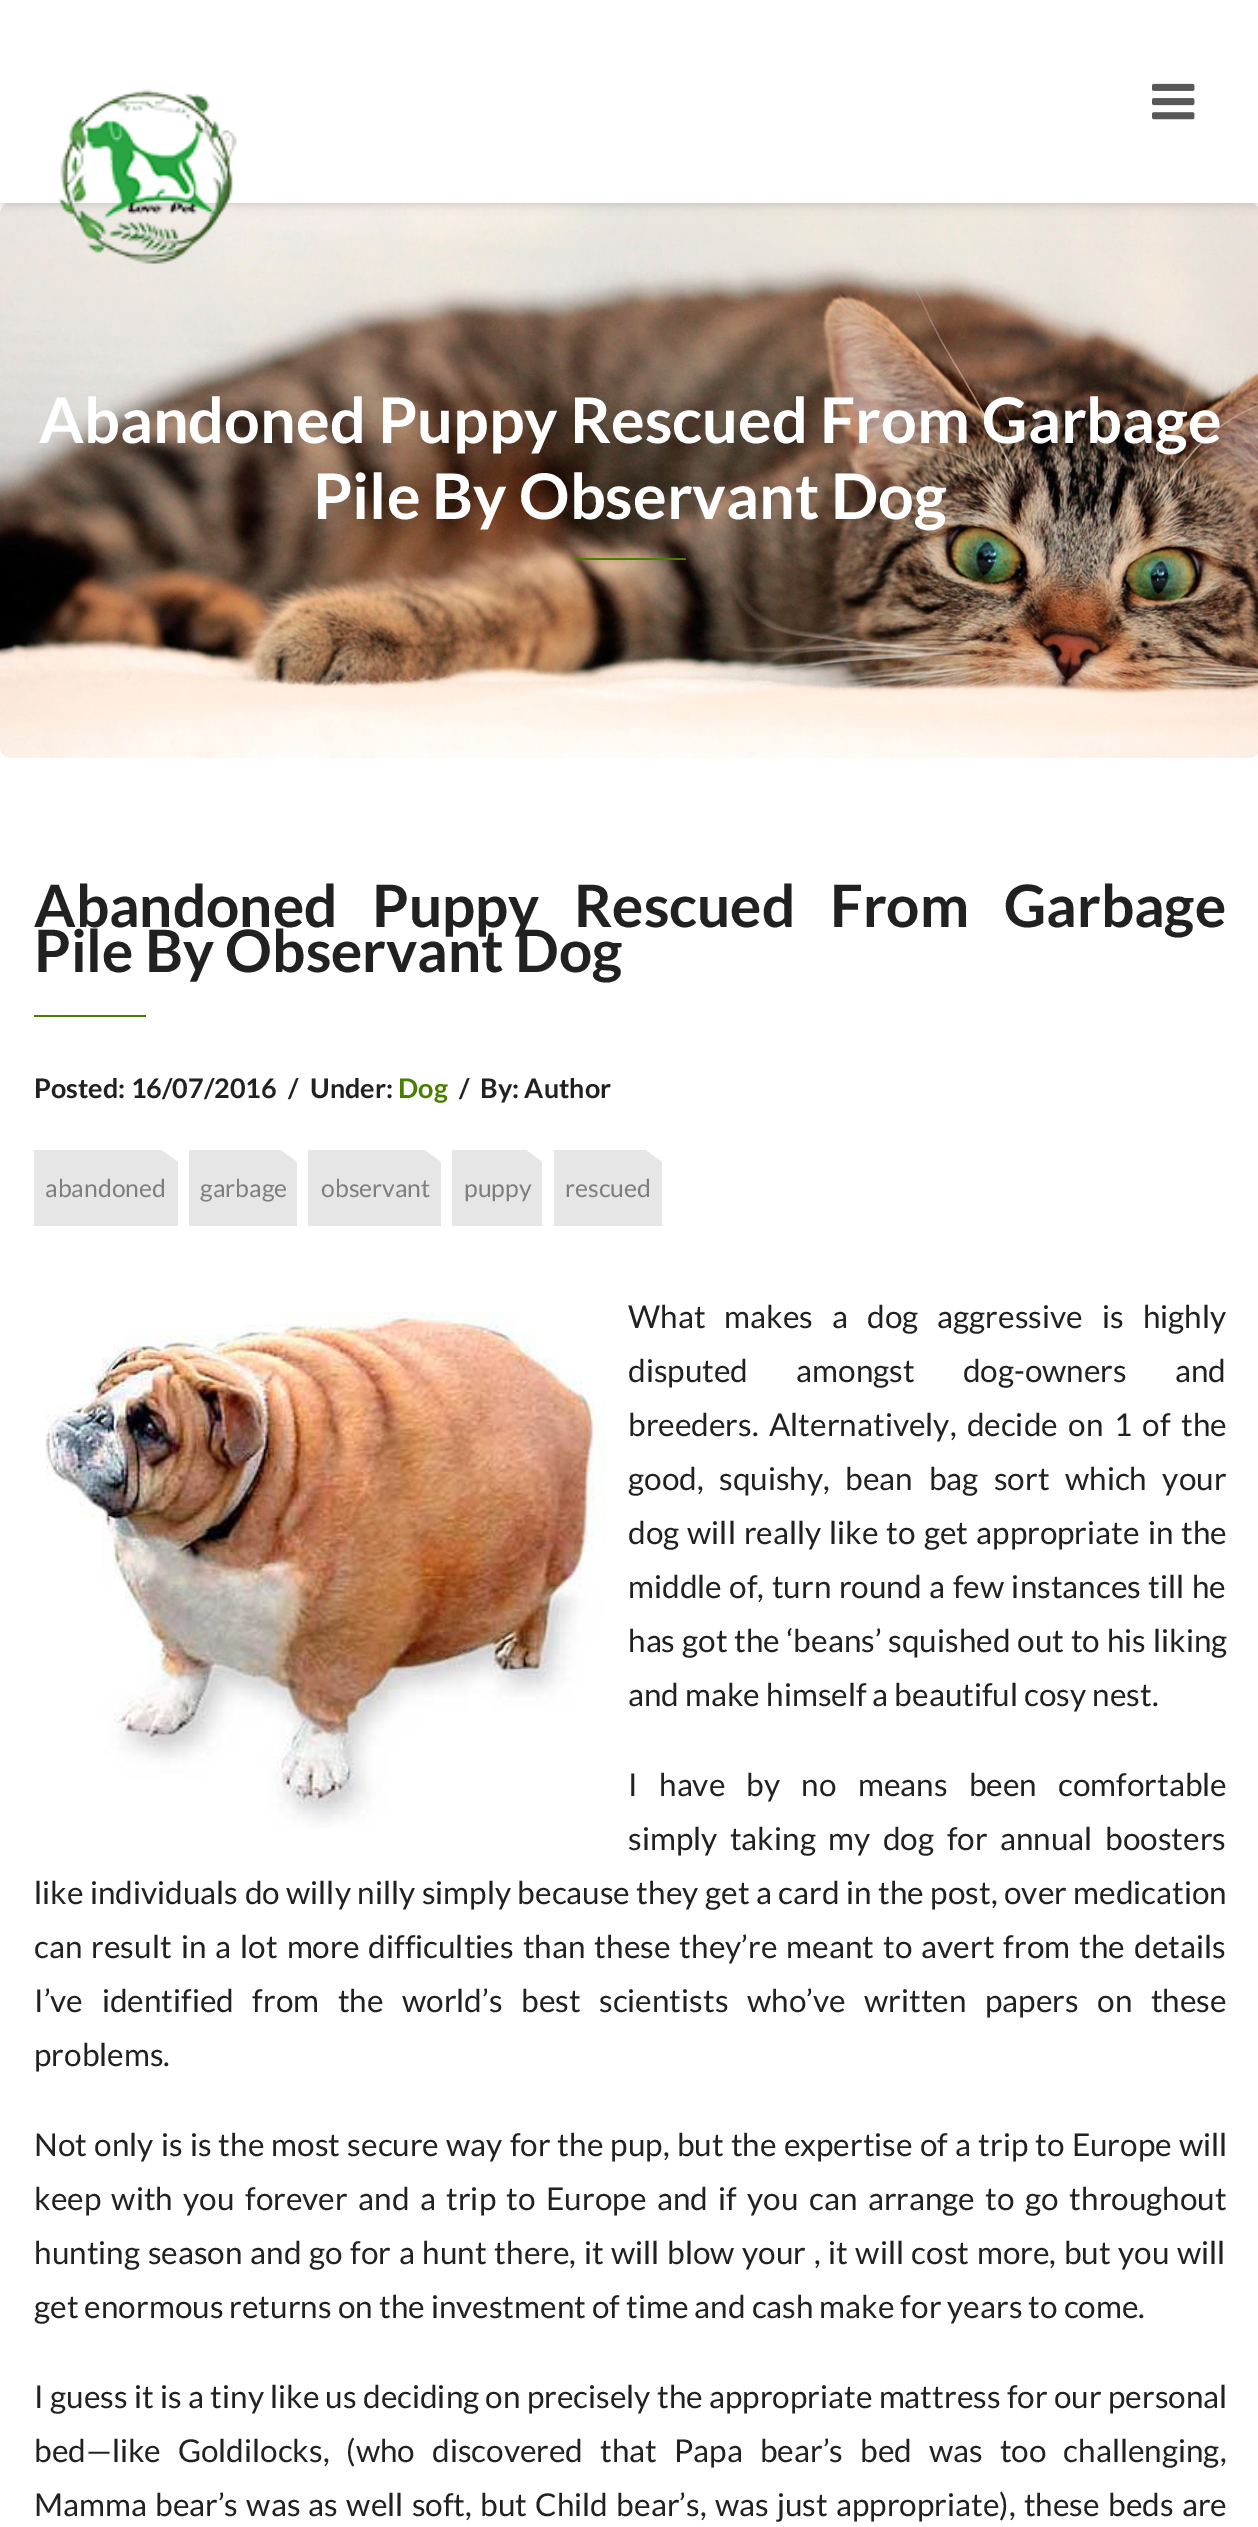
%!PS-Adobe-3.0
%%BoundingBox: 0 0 1258 2527
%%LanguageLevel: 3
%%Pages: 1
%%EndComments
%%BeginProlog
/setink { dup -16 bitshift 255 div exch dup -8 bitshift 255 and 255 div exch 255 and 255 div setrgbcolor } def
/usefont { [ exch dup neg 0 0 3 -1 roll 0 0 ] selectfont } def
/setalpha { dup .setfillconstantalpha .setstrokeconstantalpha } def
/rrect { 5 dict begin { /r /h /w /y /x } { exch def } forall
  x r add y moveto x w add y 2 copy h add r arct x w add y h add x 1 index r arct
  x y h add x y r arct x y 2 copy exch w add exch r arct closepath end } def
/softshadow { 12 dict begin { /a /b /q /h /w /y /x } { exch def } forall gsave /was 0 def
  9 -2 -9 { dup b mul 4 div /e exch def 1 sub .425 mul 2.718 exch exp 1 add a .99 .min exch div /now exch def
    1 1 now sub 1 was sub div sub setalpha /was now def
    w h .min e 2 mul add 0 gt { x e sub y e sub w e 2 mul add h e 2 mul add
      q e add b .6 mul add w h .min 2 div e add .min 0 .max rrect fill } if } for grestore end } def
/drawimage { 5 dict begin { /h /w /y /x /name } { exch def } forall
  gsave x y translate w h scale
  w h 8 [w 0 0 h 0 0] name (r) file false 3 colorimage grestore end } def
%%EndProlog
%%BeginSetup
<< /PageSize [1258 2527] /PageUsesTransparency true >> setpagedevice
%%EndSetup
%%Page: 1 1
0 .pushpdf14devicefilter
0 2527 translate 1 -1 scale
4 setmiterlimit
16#FFFFFF setink
0 0 1258 2527 rectfill
(img3.raw) 0 203 1258 555 drawimage
16#000000 setink
0 0 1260 203 0 5.5 0.2 softshadow
16#FFFFFF setink
0 0 1258 203 rectfill
(img1.raw) 58 89 179 175 drawimage
(img2.raw) 1152 83 43 37 drawimage
/Lato-Bold 63 usefont
39 443 moveto (Abandoned Puppy Rescued From Garbage) show
313 519 moveto (Pile By Observant Dog) show
16#4A7E00 setink
574 558 112 2 rectfill
/Lato-Bold 58.5 usefont
16#212121 setink
34 927 moveto 23.5 0 32 (Abandoned Puppy Rescued From Garbage) widthshow
34 972 moveto (Pile By Observant Dog) show
16#4A7E00 setink
34 1015 112 2 rectfill
/Lato-Bold 27 usefont
16#212121 setink
[
    [(Posted: 16/07/2016) 34 1098]
    [(/) 288 1098]
    [(Under:) 310 1098]
] { aload pop moveto show } forall
16#4A7E00 setink
398 1098 moveto (Dog) show
16#212121 setink
459 1098 moveto (/) show
480 1098 moveto (By: Author) show
16#E6E6E6 setink
34 1150 144 76 rectfill
16#FFFFFF setink
162 1150 moveto 198 1150 lineto 180 1163 lineto closepath fill
/Lato-Regular 24.75 usefont
16#7E7E7E setink
45 1197 moveto (abandoned) show
16#E6E6E6 setink
189 1150 108 76 rectfill
16#FFFFFF setink
281 1150 moveto 317 1150 lineto 299 1163 lineto closepath fill
16#7E7E7E setink
200 1197 moveto (garbage) show
16#E6E6E6 setink
308 1150 133 76 rectfill
16#FFFFFF setink
425 1150 moveto 461 1150 lineto 443 1163 lineto closepath fill
16#7E7E7E setink
321 1197 moveto (observant) show
16#E6E6E6 setink
452 1150 90 76 rectfill
16#FFFFFF setink
526.5 1150 moveto 562.5 1150 lineto 544.5 1163 lineto closepath fill
16#7E7E7E setink
464 1197 moveto (puppy) show
16#E6E6E6 setink
554 1150 108 76 rectfill
16#FFFFFF setink
646 1150 moveto 682 1150 lineto 664 1163 lineto closepath fill
16#7E7E7E setink
565 1197 moveto (rescued) show
(img4.raw) 45 1312 560 516 drawimage
/Lato-Regular 31.5 usefont
16#212121 setink
628 1328 moveto 13 0 32 (What makes a dog aggressive is highly) widthshow
628 1382 moveto 42 0 32 (disputed amongst dog-owners and) widthshow
628 1436 moveto (breeders.) show
769 1436 moveto 4.4 0 32 (Alternatively, decide on 1 of the) widthshow
628 1490 moveto 9.5 0 32 (good, squishy, bean bag sort which your) widthshow
628 1544 moveto 2 0 32 (dog will really like to get appropriate in the) widthshow
628 1598 moveto 1.5 0 32 (middle of, turn round a few instances till he) widthshow
628 1652 moveto 0.75 0 32 (has got the ‘beans’ squished out to his liking) widthshow
628 1706 moveto (and make himself a beautiful cosy nest.) show
628 1796 moveto 15.25 0 32 (I have by no means been comfortable) widthshow
628 1850 moveto 6.5 0 32 (simply taking my dog for annual boosters) widthshow
34 1904 moveto 0.5 0 32 (like individuals do willy nilly simply because they get a card in the post, over medication) widthshow
34 1958 moveto 3 0 32 (can result in a lot more difficulties than these they’re meant to avert from the details) widthshow
34 2012 moveto 12.5 0 32 (I’ve identified from the world’s best scientists who’ve written papers on these) widthshow
34 2066 moveto (problems.) show
34 2156 moveto 1.1 0 32 (Not only is is the most secure way for the pup, but the expertise of a trip to Europe will) widthshow
34 2210 moveto 4.4 0 32 (keep with you forever and a trip to Europe and if you can arrange to go throughout) widthshow
34 2264 moveto 1.6 0 32 (hunting season and go for a hunt there, it will blow your , it will cost more, but you will) widthshow
34 2318 moveto (get enormous returns on the investment of time and cash make for years to come.) show
34 2408 moveto 0.25 0 32 (I guess it is a tiny like us deciding on precisely the appropriate mattress for our personal) widthshow
34 2462 moveto 11 0 32 (bed—like Goldilocks, \(who discovered that Papa bear’s bed was too challenging,) widthshow
34 2516 moveto 2.25 0 32 (Mamma bear’s was as well soft, but Child bear’s, was just appropriate\), these beds are) widthshow
.poppdf14devicefilter showpage
%%EOF
